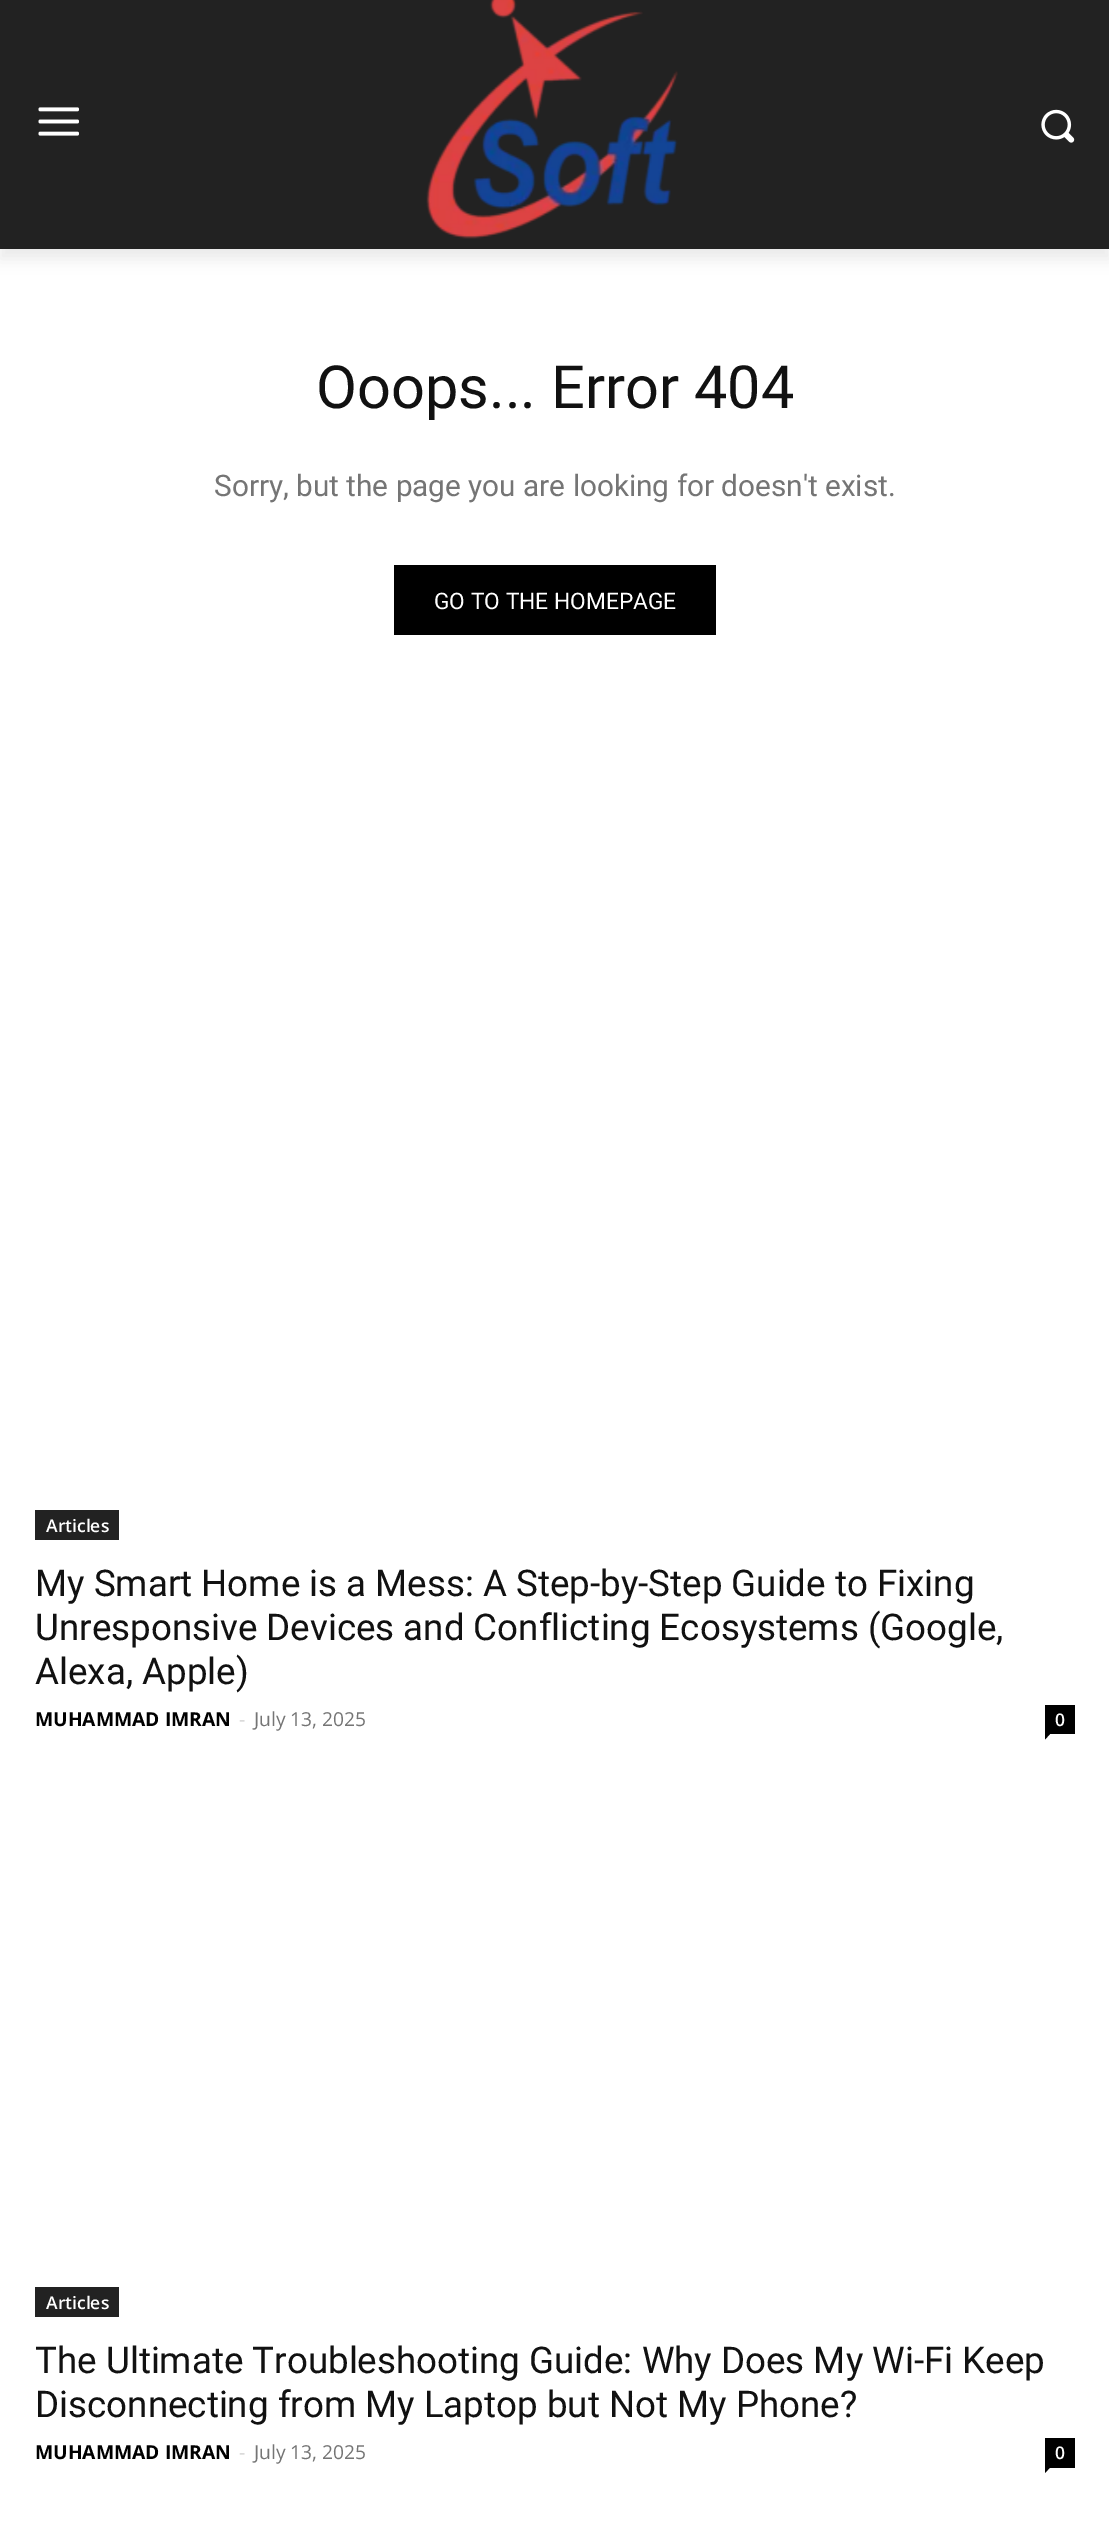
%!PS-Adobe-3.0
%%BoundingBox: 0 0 1109 2533
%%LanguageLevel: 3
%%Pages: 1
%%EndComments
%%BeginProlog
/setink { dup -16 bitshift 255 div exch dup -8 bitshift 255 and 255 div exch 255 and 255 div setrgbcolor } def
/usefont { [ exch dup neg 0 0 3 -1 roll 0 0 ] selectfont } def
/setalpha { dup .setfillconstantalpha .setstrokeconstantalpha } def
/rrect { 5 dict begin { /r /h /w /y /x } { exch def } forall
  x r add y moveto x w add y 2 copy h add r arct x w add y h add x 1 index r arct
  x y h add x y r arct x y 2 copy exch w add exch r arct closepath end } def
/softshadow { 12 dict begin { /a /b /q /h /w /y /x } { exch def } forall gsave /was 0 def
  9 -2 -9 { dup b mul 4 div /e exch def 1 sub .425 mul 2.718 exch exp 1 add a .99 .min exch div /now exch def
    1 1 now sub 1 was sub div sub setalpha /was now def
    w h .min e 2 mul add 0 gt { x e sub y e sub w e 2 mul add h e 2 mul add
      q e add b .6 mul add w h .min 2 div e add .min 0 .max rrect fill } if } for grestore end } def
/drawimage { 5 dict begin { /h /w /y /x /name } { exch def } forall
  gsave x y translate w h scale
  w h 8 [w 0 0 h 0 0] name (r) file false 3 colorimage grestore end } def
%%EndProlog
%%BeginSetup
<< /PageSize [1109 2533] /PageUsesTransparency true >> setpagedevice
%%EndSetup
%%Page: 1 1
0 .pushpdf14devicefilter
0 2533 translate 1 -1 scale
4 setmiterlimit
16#FFFFFF setink
0 0 1109 2533 rectfill
16#222222 setink
0 0 1109 249 rectfill
(img1.raw) 38 107 41 29 drawimage
(img2.raw) 426 0 252 239 drawimage
(img3.raw) 1041 109 34 34 drawimage
gsave
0 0 moveto 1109 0 lineto 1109 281 lineto 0 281 lineto closepath 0 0 moveto 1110 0 lineto 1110 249 lineto 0 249 lineto closepath eoclip newpath
16#000000 setink
0 11 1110 248 0 7 0.08 softshadow
grestore
/Roboto-Regular 59.5 usefont
16#111111 setink
316 408 moveto (Ooops... Error 404) show
/Roboto-Regular 29.75 usefont
16#757575 setink
214 496 moveto (Sorry, but the page you are looking for doesn't exist.) show
16#000000 setink
394 565 322 70 rectfill
/Roboto-Regular 22.75 usefont
16#FFFFFF setink
434 609 moveto (GO TO THE HOMEPAGE) show
16#222222 setink
35 1510 84 30 rectfill
/OpenSans-SemiBold 17.5 usefont
16#FFFFFF setink
46 1532 moveto (Articles) show
/Roboto-Regular 36.75 usefont
16#111111 setink
[
    [(My Smart Home is a Mess: A Step-by-Step Guide to Fixing) 35 1596]
    [(Unresponsive Devices and Conflicting Ecosystems \(Google,) 35 1640]
    [(Alexa, Apple\)) 35 1684]
] { aload pop moveto show } forall
/OpenSans-Bold 19.25 usefont
16#000000 setink
35 1726 moveto (MUHAMMAD IMRAN) show
/OpenSans-Regular 19.25 usefont
16#CCCCCC setink
239 1726 moveto (-) show
16#757575 setink
254 1726 moveto (July 13, 2025) show
16#000000 setink
1045 1705 30 29 rectfill
/OpenSans-SemiBold 17.5 usefont
16#FFFFFF setink
1055 1726 moveto (0) show
16#000000 setink
1045 1734 moveto 1050 1734 lineto 1045 1739.5 lineto closepath fill
16#222222 setink
35 2287 84 30 rectfill
16#FFFFFF setink
46 2309 moveto (Articles) show
/Roboto-Regular 36.75 usefont
16#111111 setink
35 2373 moveto (The Ultimate Troubleshooting Guide: Why Does My Wi-Fi Keep) show
35 2417 moveto (Disconnecting from My Laptop but Not My Phone?) show
/OpenSans-Bold 19.25 usefont
16#000000 setink
35 2459 moveto (MUHAMMAD IMRAN) show
/OpenSans-Regular 19.25 usefont
16#CCCCCC setink
239 2459 moveto (-) show
16#757575 setink
254 2459 moveto (July 13, 2025) show
16#000000 setink
1045 2438 30 30 rectfill
/OpenSans-SemiBold 17.5 usefont
16#FFFFFF setink
1055 2459 moveto (0) show
16#000000 setink
1045 2467.5 moveto 1050 2467.5 lineto 1045 2473 lineto closepath fill
.poppdf14devicefilter showpage
%%EOF
